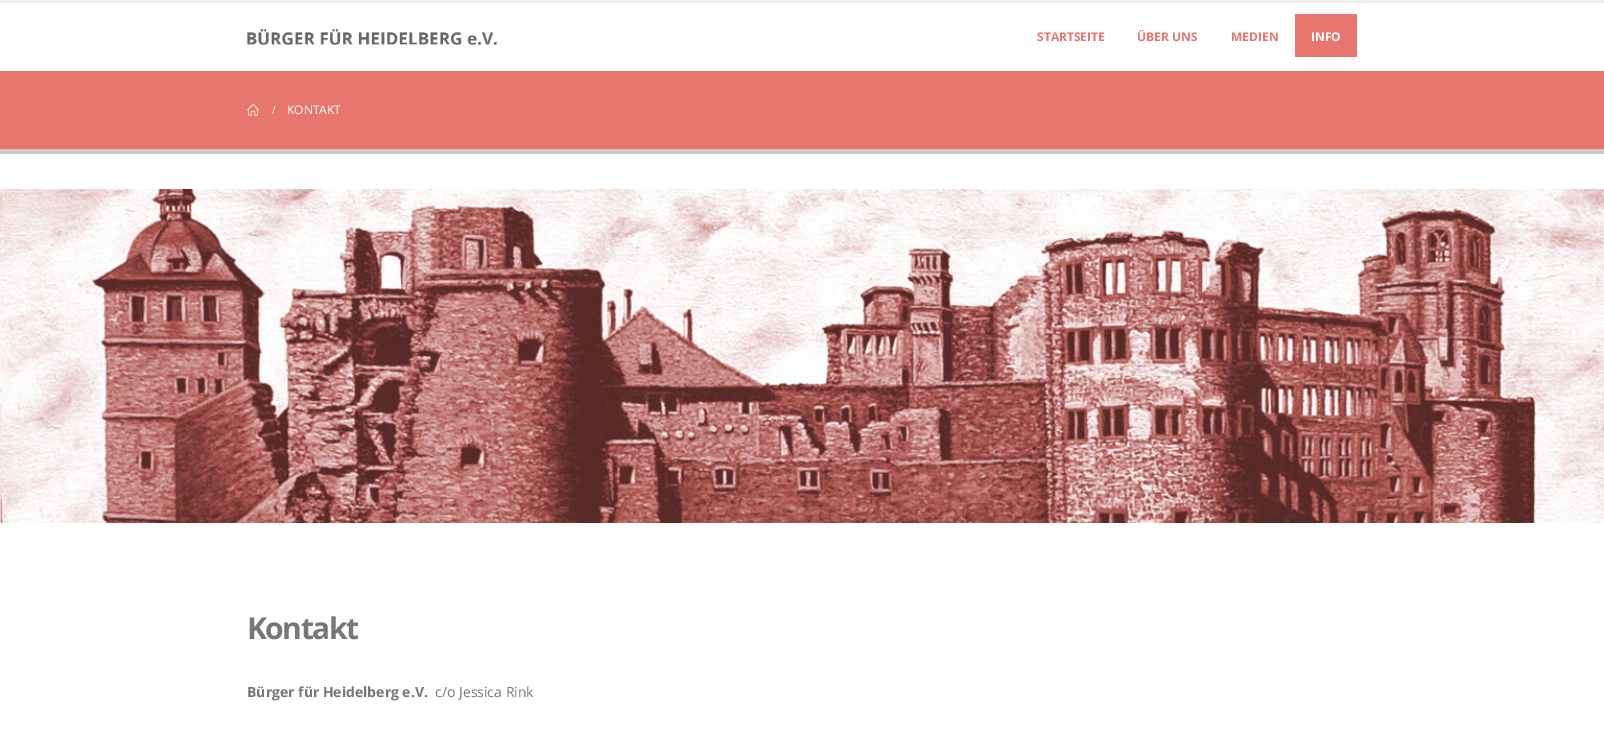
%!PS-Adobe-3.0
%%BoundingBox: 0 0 1604 731
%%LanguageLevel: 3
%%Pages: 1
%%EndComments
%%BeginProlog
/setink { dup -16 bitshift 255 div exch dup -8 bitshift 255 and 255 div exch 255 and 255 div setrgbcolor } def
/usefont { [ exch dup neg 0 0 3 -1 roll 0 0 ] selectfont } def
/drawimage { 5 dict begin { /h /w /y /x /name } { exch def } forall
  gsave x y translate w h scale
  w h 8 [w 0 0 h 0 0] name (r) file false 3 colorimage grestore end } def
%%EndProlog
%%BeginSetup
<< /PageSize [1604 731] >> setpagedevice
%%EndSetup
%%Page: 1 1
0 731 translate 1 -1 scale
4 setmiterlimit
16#FFFFFF setink
0 0 1604 731 rectfill
16#EDEDED setink
0 0 1604 3 rectfill
(img1.raw) 247 29 250 17 drawimage
/OpenSans-Bold 12 usefont
16#E7766F setink
[
    [(STARTSEITE) 1037 41]
    [(ÜBER UNS) 1137 41]
    [(MEDIEN) 1231 41]
] { aload pop moveto show } forall
1295 14 62 43 rectfill
16#FFFFFF setink
1311 41 moveto (INFO) show
16#E7766F setink
0 71 1604 78 rectfill
16#CCCCCC setink
0 149 1604 5 rectfill
(img2.raw) 247 104 12 12 drawimage
/LiberationSerif-Bold 12 usefont
16#FFFFFF setink
272 114 moveto (/) show
/OpenSans-Regular 12 usefont
287 114 moveto (KONTAKT) show
(img3.raw) 0 189 1604 334 drawimage
/OpenSans-Bold 30 usefont
16#777777 setink
247 639 moveto -1.5 0 (Kontakt) ashow
/OpenSans-Bold 14 usefont
247 697 moveto (Bürger für Heidelberg e.V.) show
/OpenSans-Regular 14 usefont
435 697 moveto (c/o Jessica Rink) show
showpage
%%EOF
